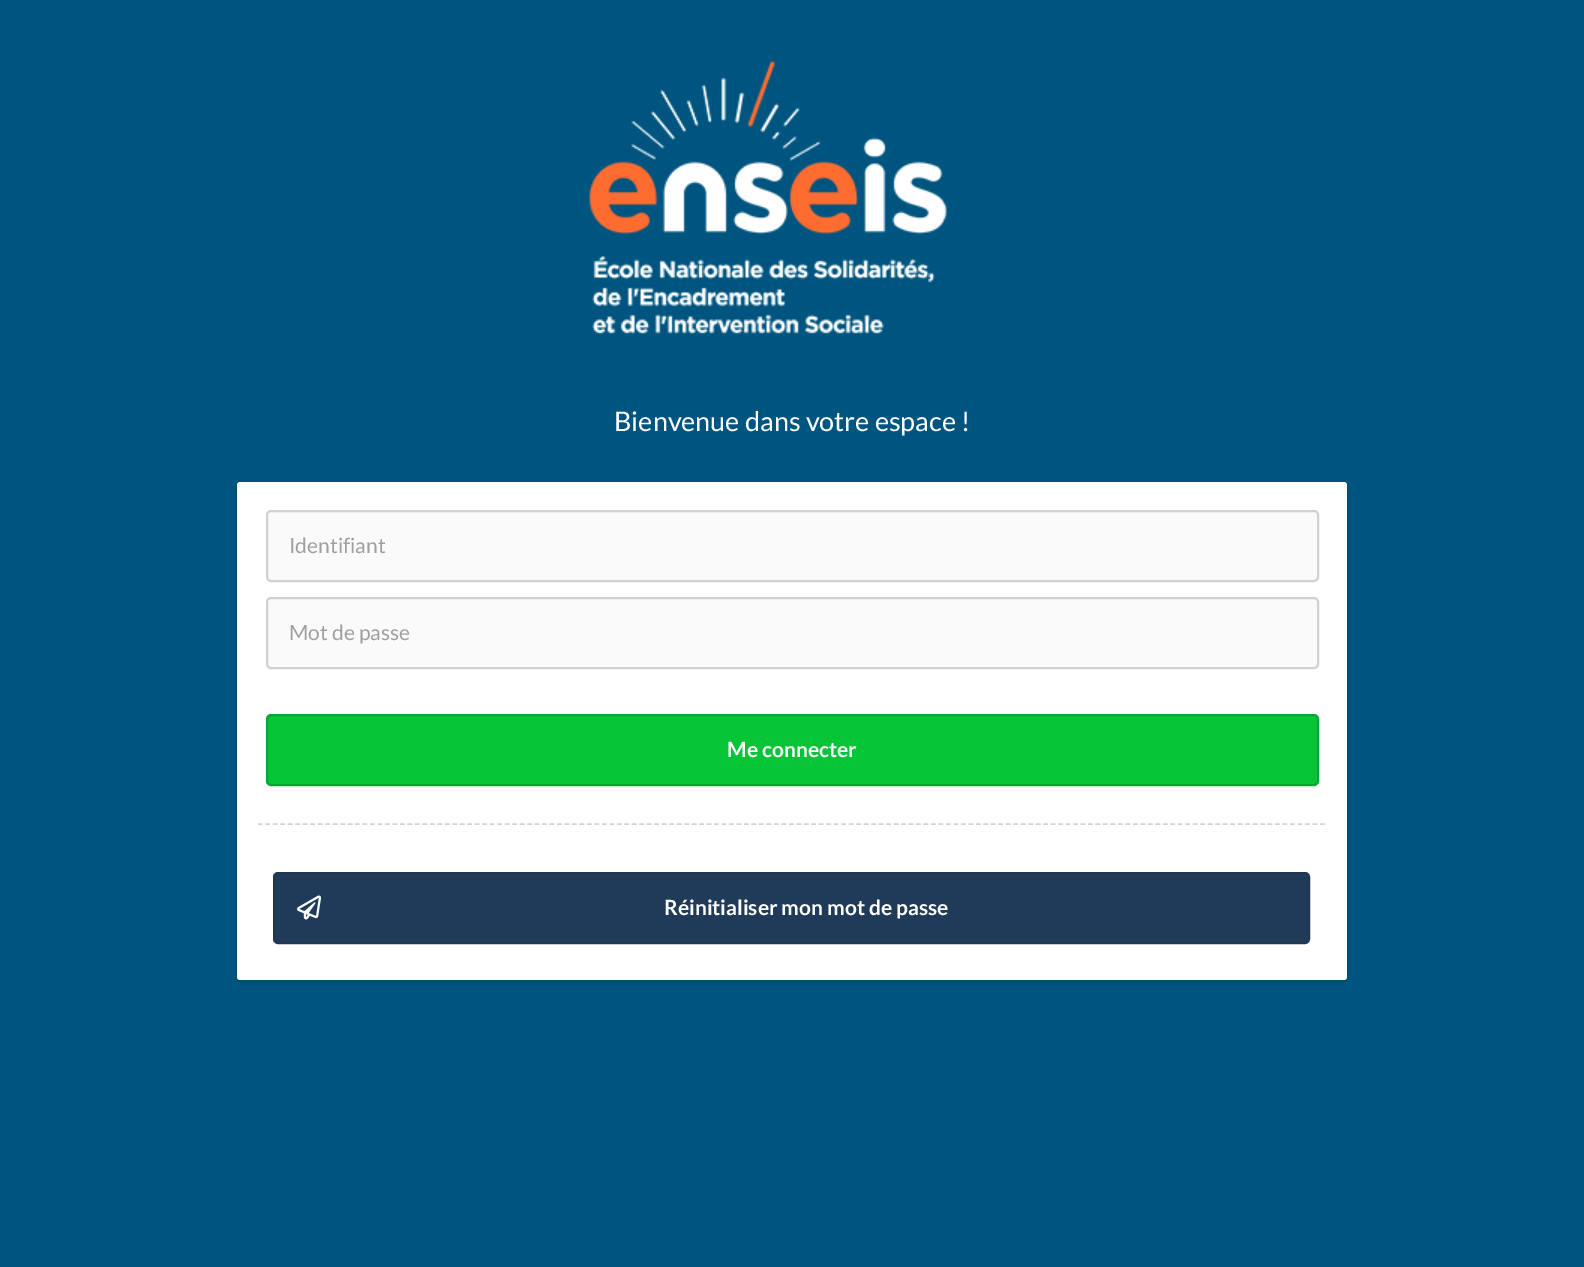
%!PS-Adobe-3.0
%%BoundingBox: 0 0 1584 1267
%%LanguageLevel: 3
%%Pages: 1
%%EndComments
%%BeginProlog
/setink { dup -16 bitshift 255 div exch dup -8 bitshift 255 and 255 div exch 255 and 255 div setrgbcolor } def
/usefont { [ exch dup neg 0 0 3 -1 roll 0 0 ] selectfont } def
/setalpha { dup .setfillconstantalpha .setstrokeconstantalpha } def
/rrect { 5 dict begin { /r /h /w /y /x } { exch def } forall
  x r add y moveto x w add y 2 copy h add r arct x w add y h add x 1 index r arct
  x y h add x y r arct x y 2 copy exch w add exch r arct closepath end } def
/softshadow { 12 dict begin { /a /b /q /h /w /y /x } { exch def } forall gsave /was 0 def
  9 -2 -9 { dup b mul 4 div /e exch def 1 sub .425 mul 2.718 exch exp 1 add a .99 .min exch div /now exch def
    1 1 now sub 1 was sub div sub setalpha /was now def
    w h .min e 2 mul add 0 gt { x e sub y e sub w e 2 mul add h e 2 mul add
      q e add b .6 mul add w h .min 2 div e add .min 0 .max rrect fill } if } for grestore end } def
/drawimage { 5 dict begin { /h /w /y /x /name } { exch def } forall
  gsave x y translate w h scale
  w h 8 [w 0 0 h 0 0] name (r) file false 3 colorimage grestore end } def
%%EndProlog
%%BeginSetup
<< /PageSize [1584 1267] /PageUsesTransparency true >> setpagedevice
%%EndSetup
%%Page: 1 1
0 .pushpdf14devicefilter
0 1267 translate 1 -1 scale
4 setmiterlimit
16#005580 setink
0 0 1584 1267 rectfill
(img1.raw) 589 61 358 273 drawimage
/Lato-Regular 27 usefont
16#FFFFFF setink
614 431 moveto (Bienvenue dans votre espace !) show
16#000000 setink
237 483 1110 498 3 2 0.2 softshadow
16#FFFFFF setink
237 482 1110 498 3 rrect fill
16#FAFAFA setink
267 511 1051 70 4 rrect gsave fill grestore
16#D1D1D1 setink
2 setlinewidth
stroke
/Lato-Regular 21 usefont
16#9F9F9F setink
289 553 moveto (Identifiant) show
16#FAFAFA setink
267 598 1051 70 4 rrect gsave fill grestore
16#D1D1D1 setink
stroke
16#9F9F9F setink
289 640 moveto (Mot de passe) show
16#05C436 setink
267 715 1051 70 4 rrect gsave fill grestore
16#0CA533 setink
stroke
/Lato-Bold 21 usefont
16#FFFFFF setink
727 757 moveto (Me connecter) show
16#D1D3D4 setink
1.5 setlinewidth
[4.5 2.98] 0 setdash
258 824 moveto 1326 824 lineto stroke
16#1F3B59 setink
274 873 1035 70 4 rrect gsave fill grestore
16#21374F setink
2 setlinewidth
[] 0 setdash
stroke
(img2.raw) 297 895 25 25 drawimage
16#FFFFFF setink
664 915 moveto (Réinitialiser mon mot de passe) show
.poppdf14devicefilter showpage
%%EOF
